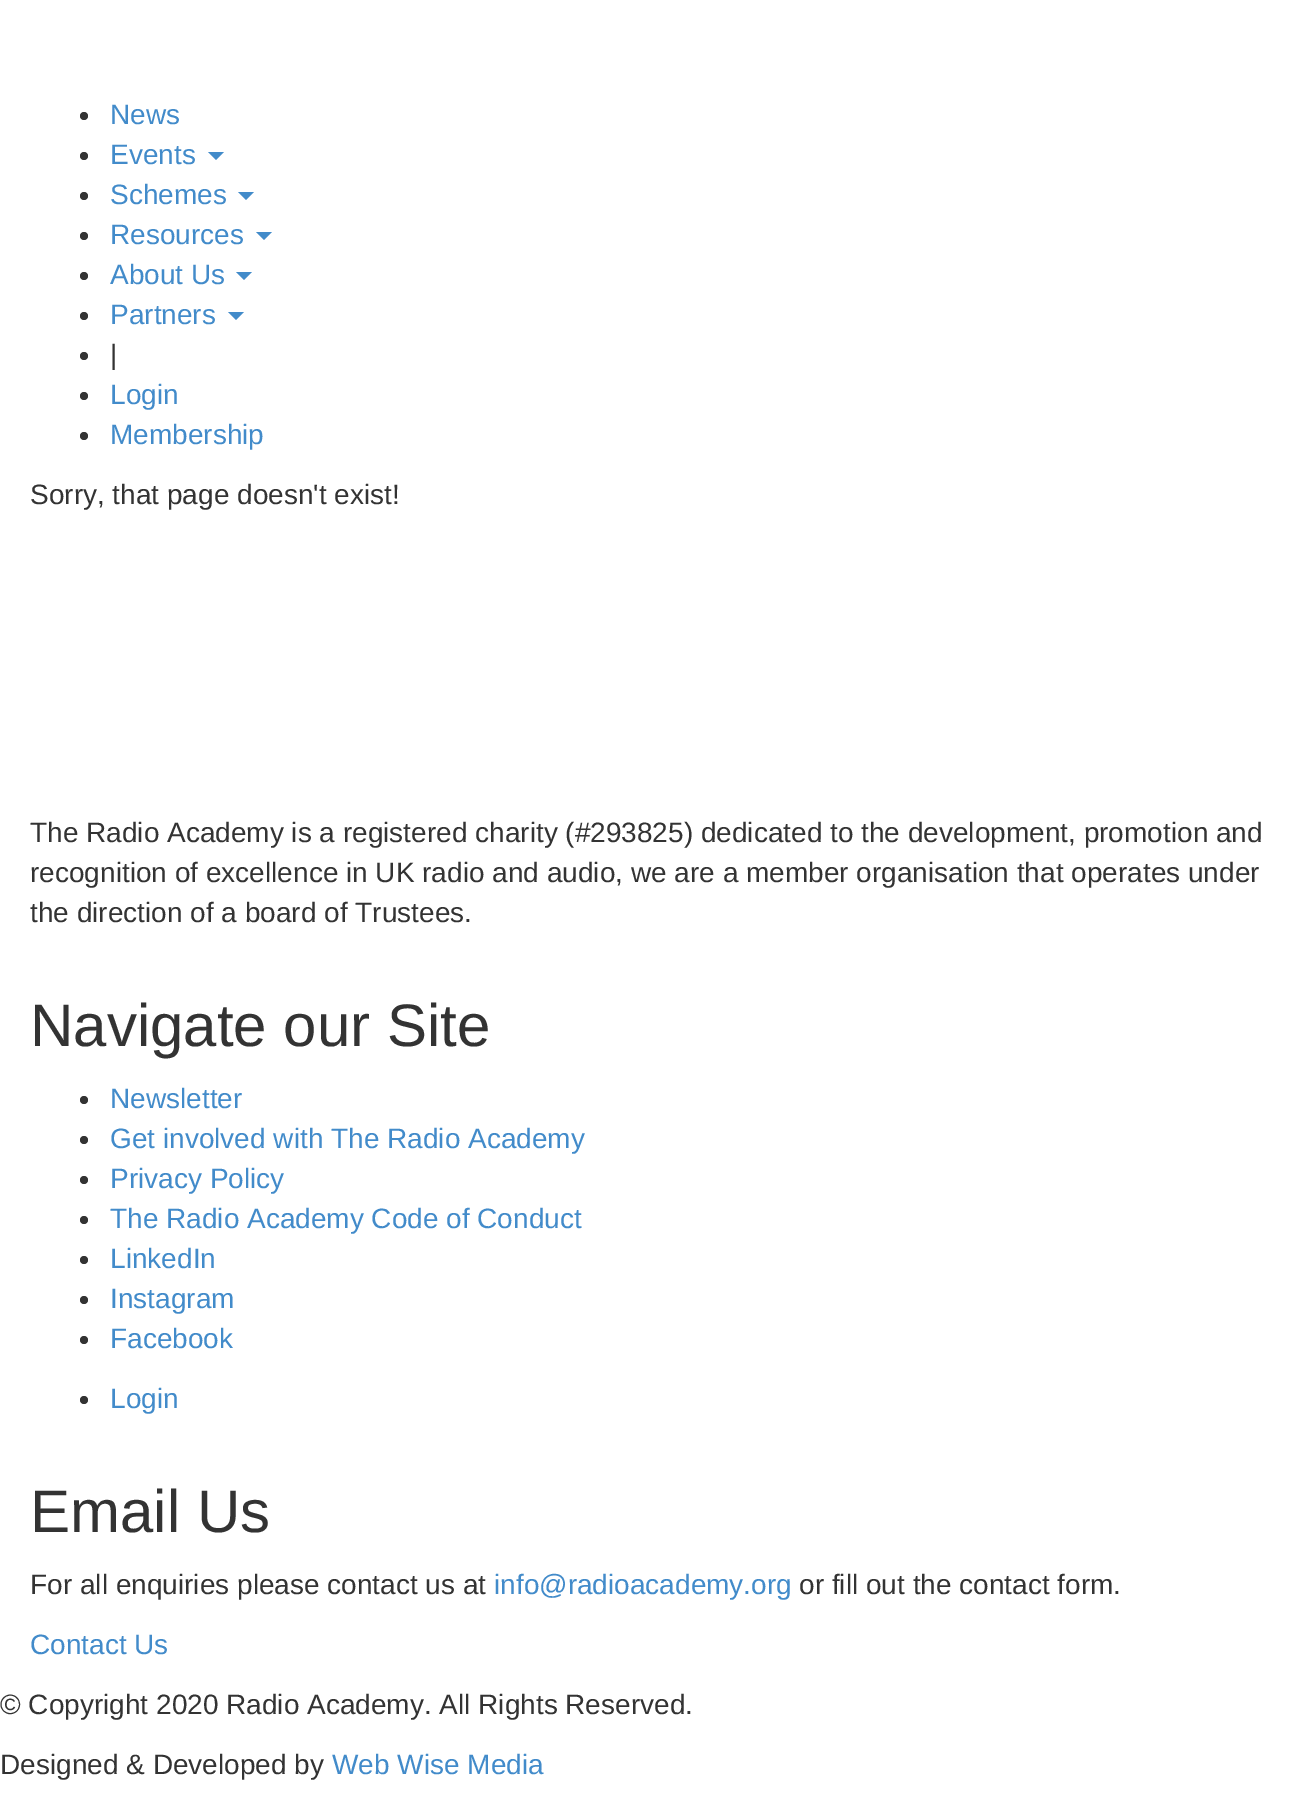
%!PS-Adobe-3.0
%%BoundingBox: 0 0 1310 1803
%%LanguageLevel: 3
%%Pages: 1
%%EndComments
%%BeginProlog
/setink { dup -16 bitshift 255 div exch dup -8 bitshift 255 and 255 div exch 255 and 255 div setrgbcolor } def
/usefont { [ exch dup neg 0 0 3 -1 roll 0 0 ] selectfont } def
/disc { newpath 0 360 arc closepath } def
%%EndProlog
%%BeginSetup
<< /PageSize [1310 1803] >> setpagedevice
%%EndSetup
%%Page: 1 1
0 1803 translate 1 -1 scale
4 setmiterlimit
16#FFFFFF setink
0 0 1310 1803 rectfill
16#333333 setink
84 116 4 disc fill
/LiberationSans-Regular 28 usefont
16#428BCA setink
110 124 moveto (News) show
16#333333 setink
84 156 4 disc fill
16#428BCA setink
110 164 moveto (Events) show
208 152 moveto 224 152 lineto 216 160 lineto closepath fill
16#333333 setink
84 196 4 disc fill
16#428BCA setink
110 204 moveto (Schemes) show
238 192 moveto 254 192 lineto 246 200 lineto closepath fill
16#333333 setink
84 236 4 disc fill
16#428BCA setink
110 244 moveto (Resources) show
256 232 moveto 272 232 lineto 264 240 lineto closepath fill
16#333333 setink
84 276 4 disc fill
16#428BCA setink
110 284 moveto (About Us) show
236 272 moveto 252 272 lineto 244 280 lineto closepath fill
16#333333 setink
84 316 4 disc fill
16#428BCA setink
110 324 moveto (Partners) show
228 312 moveto 244 312 lineto 236 320 lineto closepath fill
16#333333 setink
84 356 4 disc fill
110 364 moveto (|) show
84 396 4 disc fill
16#428BCA setink
110 404 moveto (Login) show
16#333333 setink
84 436 4 disc fill
16#428BCA setink
110 444 moveto (Membership) show
16#333333 setink
[
    [(Sorry, that page doesn't exist!) 30 504]
    [(The Radio Academy is a registered charity \(#293825\) dedicated to the development, promotion and) 30 842]
    [(recognition of excellence in UK radio and audio, we are a member organisation that operates under) 30 882]
    [(the direction of a board of Trustees.) 30 922]
] { aload pop moveto show } forall
/LiberationSans-Regular 60 usefont
30 1046 moveto (Navigate our Site) show
84 1100 4 disc fill
/LiberationSans-Regular 28 usefont
16#428BCA setink
110 1108 moveto (Newsletter) show
16#333333 setink
84 1140 4 disc fill
16#428BCA setink
110 1148 moveto (Get involved with The Radio Academy) show
16#333333 setink
84 1180 4 disc fill
16#428BCA setink
110 1188 moveto (Privacy Policy) show
16#333333 setink
84 1220 4 disc fill
16#428BCA setink
110 1228 moveto (The Radio Academy Code of Conduct) show
16#333333 setink
84 1260 4 disc fill
16#428BCA setink
110 1268 moveto (LinkedIn) show
16#333333 setink
84 1300 4 disc fill
16#428BCA setink
110 1308 moveto (Instagram) show
16#333333 setink
84 1340 4 disc fill
16#428BCA setink
110 1348 moveto (Facebook) show
16#333333 setink
84 1400 4 disc fill
16#428BCA setink
110 1408 moveto (Login) show
/LiberationSans-Regular 60 usefont
16#333333 setink
30 1532 moveto (Email Us) show
/LiberationSans-Regular 28 usefont
30 1594 moveto (For all enquiries please contact us at) show
16#428BCA setink
494 1594 moveto (info@radioacademy.org) show
16#333333 setink
799 1594 moveto (or fill out the contact form.) show
16#428BCA setink
30 1654 moveto (Contact Us) show
16#333333 setink
0 1714 moveto (© Copyright 2020 Radio Academy. All Rights Reserved.) show
0 1774 moveto (Designed & Developed by) show
16#428BCA setink
332 1774 moveto (Web Wise Media) show
showpage
%%EOF
